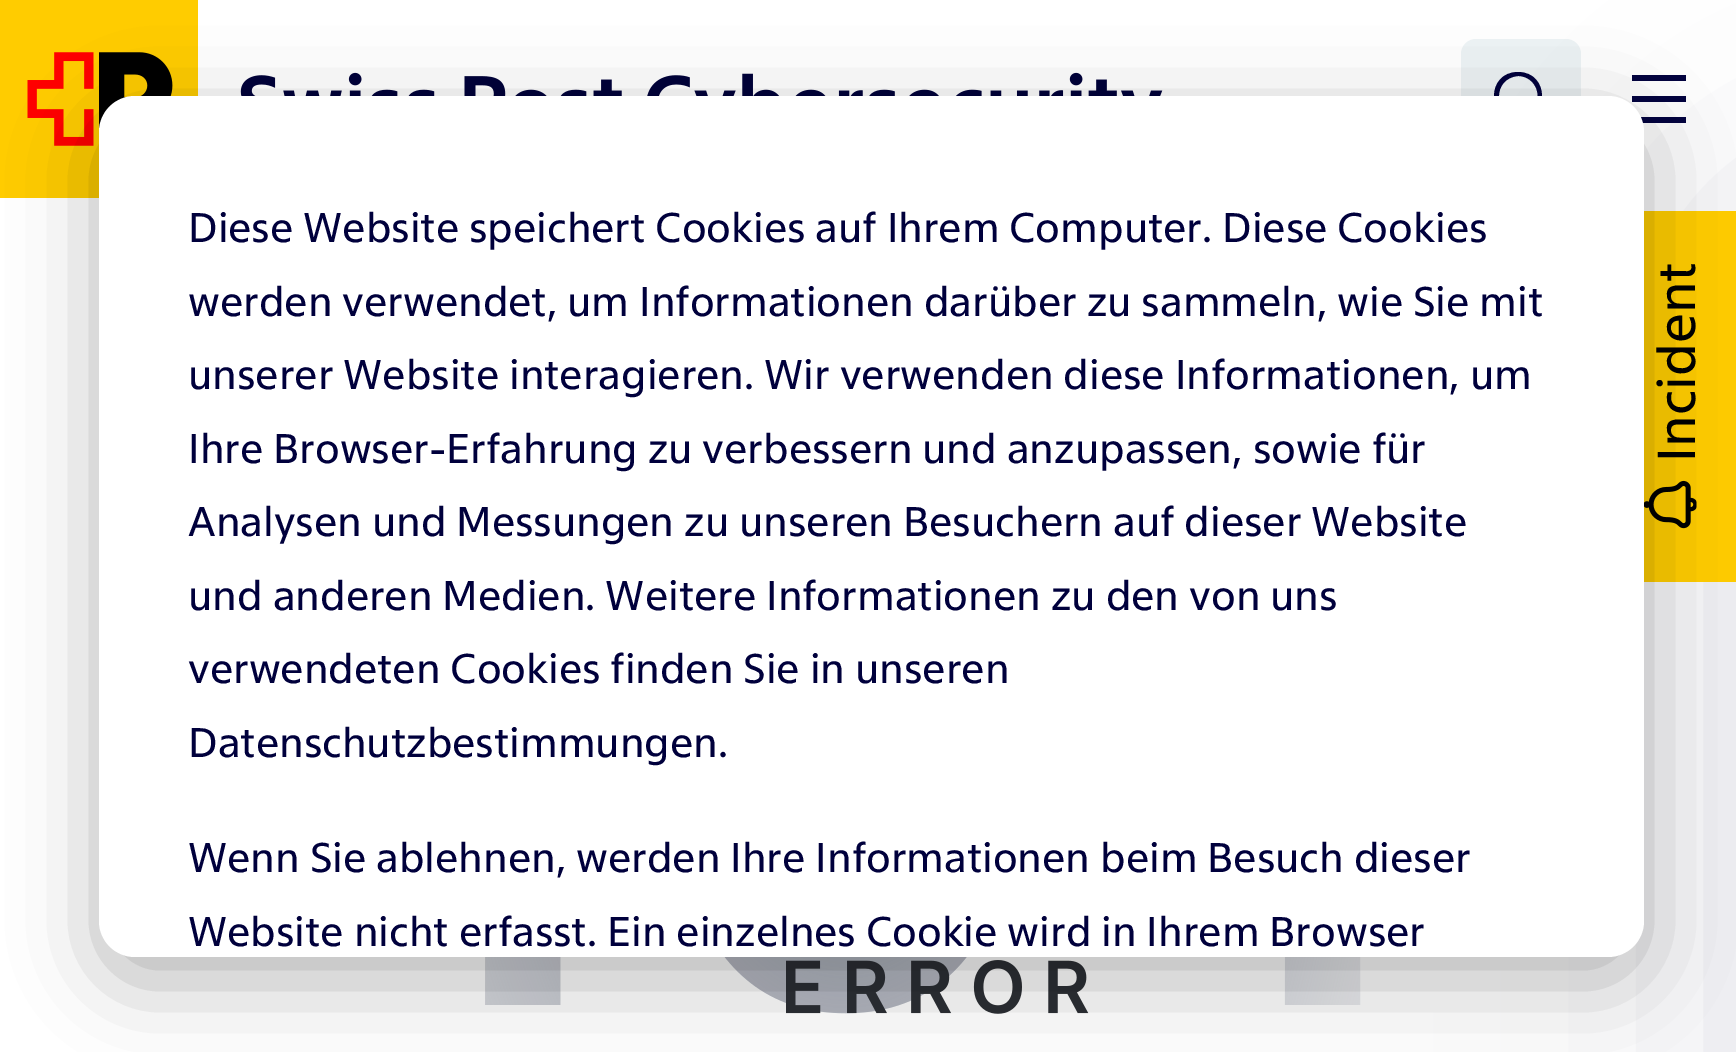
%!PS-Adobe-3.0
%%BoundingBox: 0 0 1736 1052
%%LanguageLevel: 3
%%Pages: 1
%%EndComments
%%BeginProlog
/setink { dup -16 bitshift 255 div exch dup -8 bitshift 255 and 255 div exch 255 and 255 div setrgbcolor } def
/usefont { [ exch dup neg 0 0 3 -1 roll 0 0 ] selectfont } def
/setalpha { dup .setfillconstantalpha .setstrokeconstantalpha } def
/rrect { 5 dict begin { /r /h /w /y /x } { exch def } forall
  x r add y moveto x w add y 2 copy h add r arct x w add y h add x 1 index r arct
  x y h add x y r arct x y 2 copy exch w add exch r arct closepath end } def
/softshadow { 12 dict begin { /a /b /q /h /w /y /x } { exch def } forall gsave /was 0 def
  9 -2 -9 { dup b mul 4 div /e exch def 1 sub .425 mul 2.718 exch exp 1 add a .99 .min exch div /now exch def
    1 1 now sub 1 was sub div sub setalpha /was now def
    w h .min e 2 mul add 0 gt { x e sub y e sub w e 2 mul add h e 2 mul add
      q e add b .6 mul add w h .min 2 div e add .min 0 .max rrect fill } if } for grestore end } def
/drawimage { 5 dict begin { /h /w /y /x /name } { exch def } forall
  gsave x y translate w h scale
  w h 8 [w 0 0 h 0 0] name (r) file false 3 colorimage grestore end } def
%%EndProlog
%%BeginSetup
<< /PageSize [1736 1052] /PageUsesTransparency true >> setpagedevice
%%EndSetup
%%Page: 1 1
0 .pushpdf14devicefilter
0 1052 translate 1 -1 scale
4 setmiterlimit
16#FFFFFF setink
0 0 1736 1052 rectfill
(img1.raw) 0 0 1163 198 drawimage
16#EDF3F5 setink
1461 39 120 120 15 rrect fill
16#00003C setink
1518 116 moveto 1523 116 1528 114 1532 110 curveto 1544 98 1536 76 1518 76 curveto 1492 78 1493 116 1518 116 curveto 1518 120 moveto 1486 120 1486 72 1518 72 curveto 1550 72 1550 120 1518 120 curveto closepath fill
1632 75 moveto 1686 75 lineto 1686 81 lineto 1632 81 lineto closepath 1632 96 moveto 1686 96 lineto 1686 102 lineto 1632 102 lineto closepath 1632 117 moveto 1686 117 lineto 1686 123 lineto 1632 123 lineto closepath fill
(img3.raw) 485 957 876 57 drawimage
16#565D85 setink
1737 210 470 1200 66 135 0.2 softshadow
16#FFCC00 setink
1605 558 moveto 1605 235 lineto 1605 221 1616 211 1629 211 curveto 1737 211 lineto 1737 582 lineto 1629 582 lineto 1616 582 1605 571 1605 558 curveto closepath fill
1605 558 moveto 1605 235 lineto 1605 221 1616 211 1629 211 curveto 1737 211 lineto 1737 582 lineto 1629 582 lineto 1616 582 1605 571 1605 558 curveto closepath 1608 558 moveto 1608 235 lineto 1608 223 1617 214 1629 214 curveto 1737 214 lineto 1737 579 lineto 1629 579 lineto 1617 579 1608 569 1608 558 curveto closepath eofill
(img2.raw) 1644 480 53 49 drawimage
gsave
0 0 moveto 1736 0 lineto 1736 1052 lineto 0 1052 lineto closepath 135 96 moveto 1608 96 lineto 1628 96 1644 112 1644 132 curveto 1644 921 lineto 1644 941 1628 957 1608 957 curveto 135 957 lineto 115 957 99 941 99 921 curveto 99 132 lineto 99 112 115 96 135 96 curveto closepath eoclip newpath
16#000000 setink
99 120 1545 861 36 42 0.28 softshadow
grestore
16#FFFFFF setink
99 96 1545 861 36 rrect fill
/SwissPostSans-Regular 42 usefont
16#00003C setink
[
    [(Diese Website speichert Cookies auf Ihrem Computer. Diese Cookies) 188 242]
    [(werden verwendet, um Informationen darüber zu sammeln, wie Sie mit) 188 316]
    [(unserer Website interagieren. Wir verwenden diese Informationen, um) 188 389]
    [(Ihre Browser-Erfahrung zu verbessern und anzupassen, sowie für) 188 463]
    [(Analysen und Messungen zu unseren Besuchern auf dieser Website) 188 536]
    [(und anderen Medien. Weitere Informationen zu den von uns) 188 610]
    [(verwendeten Cookies finden Sie in unseren) 188 683]
    [(Datenschutzbestimmungen.) 188 757]
    [(Wenn Sie ablehnen, werden Ihre Informationen beim Besuch dieser) 188 872]
    [(Website nicht erfasst. Ein einzelnes Cookie wird in Ihrem Browser) 188 946]
] { aload pop moveto show } forall
/SwissPostSans-Regular 54 usefont
16#000000 setink
gsave 1695 462 translate -90 rotate 0 0 moveto (Incident) show grestore
.poppdf14devicefilter showpage
%%EOF
